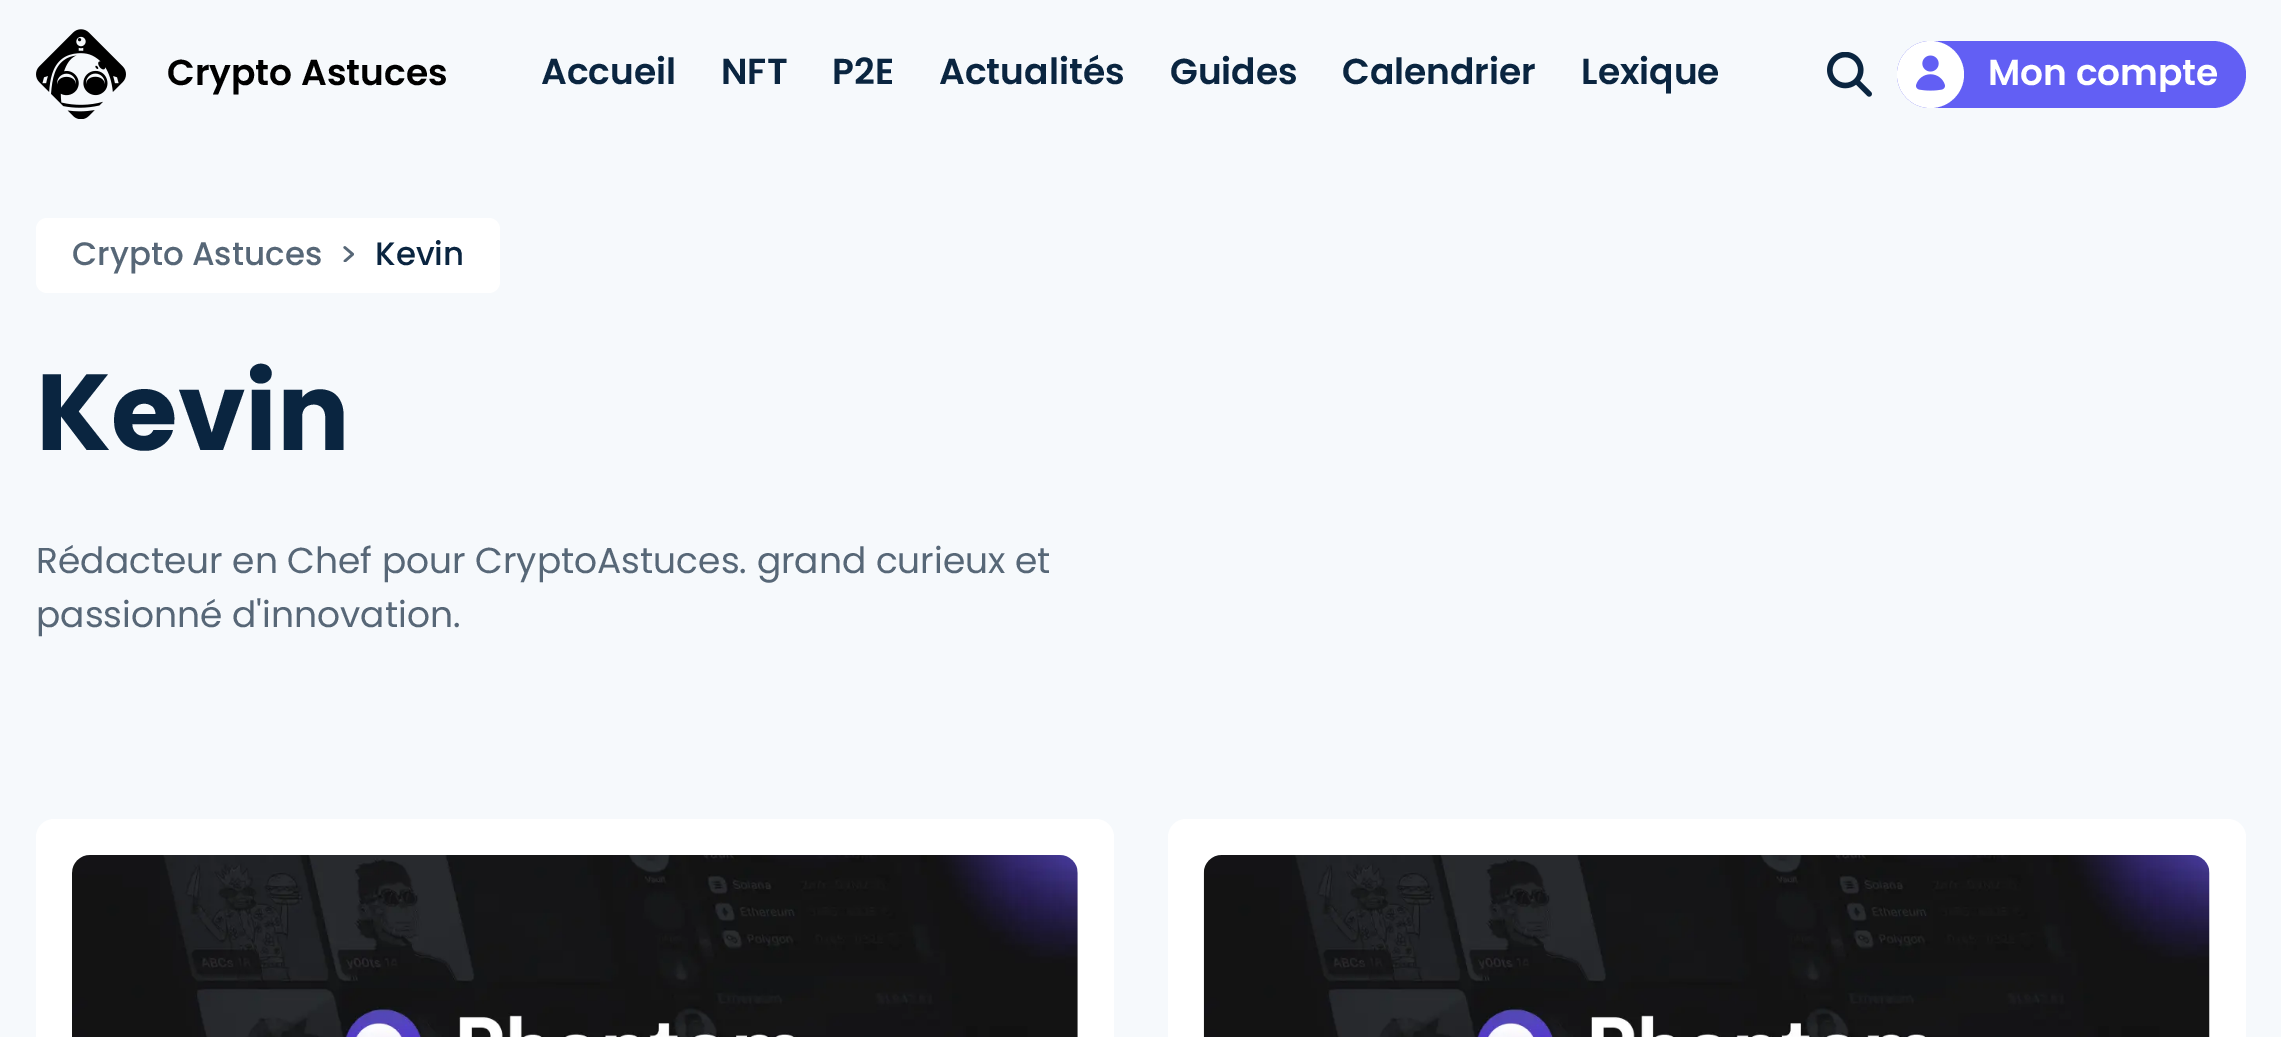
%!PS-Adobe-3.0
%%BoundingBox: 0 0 2281 1037
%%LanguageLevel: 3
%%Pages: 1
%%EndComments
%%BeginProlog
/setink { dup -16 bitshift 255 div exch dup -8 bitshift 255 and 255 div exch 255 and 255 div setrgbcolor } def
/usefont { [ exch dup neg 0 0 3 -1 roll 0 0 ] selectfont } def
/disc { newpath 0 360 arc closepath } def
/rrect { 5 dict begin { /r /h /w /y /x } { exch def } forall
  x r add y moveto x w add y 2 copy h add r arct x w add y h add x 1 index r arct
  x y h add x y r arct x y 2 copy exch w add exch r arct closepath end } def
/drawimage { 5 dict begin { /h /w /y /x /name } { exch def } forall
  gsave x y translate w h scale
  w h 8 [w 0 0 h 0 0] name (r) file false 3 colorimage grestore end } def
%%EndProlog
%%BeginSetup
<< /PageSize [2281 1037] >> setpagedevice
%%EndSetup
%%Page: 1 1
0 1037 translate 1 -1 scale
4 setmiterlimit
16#F6F9FC setink
0 0 2281 1037 rectfill
(img1.raw) 36 29 90 90 drawimage
/Poppins-SemiBold 36 usefont
16#000000 setink
167 85 moveto (Crypto Astuces) show
16#0A2540 setink
[
    [(Accueil) 541 84]
    [(NFT) 721 84]
    [(P2E) 832 84]
    [(Actualités) 939 84]
    [(Guides) 1170 84]
    [(Calendrier) 1342 84]
    [(Lexique) 1581 84]
] { aload pop moveto show } forall
(img2.raw) 1827 52 45 45 drawimage
16#625FF4 setink
1897 41 349 67 33.5 rrect fill
16#FFFFFF setink
1930.5 74.5 33.5 disc fill
(img3.raw) 1916 55 29 36 drawimage
gsave
1987 54 232 38 rectclip
1988 85 moveto (Mon compte) show
grestore
36 218 464 75 11 rrect fill
/Poppins-Medium 32.5 usefont
16#576777 setink
72 265 moveto (Crypto Astuces) show
(img4.raw) 343 246 11 16 drawimage
16#0A2540 setink
375 265 moveto (Kevin) show
/Poppins-Bold 108 usefont
36 450 moveto (Kevin) show
/Poppins-Regular 36 usefont
16#576777 setink
36 573 moveto (Rédacteur en Chef pour CryptoAstuces. grand curieux et) show
36 627 moveto (passionné d'innovation.) show
16#FFFFFF setink
36 819 1078 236 18 rrect fill
(img5.raw) 72 855 1006 182 drawimage
1168 819 1078 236 18 rrect fill
(img6.raw) 1203 855 1007 182 drawimage
showpage
%%EOF
